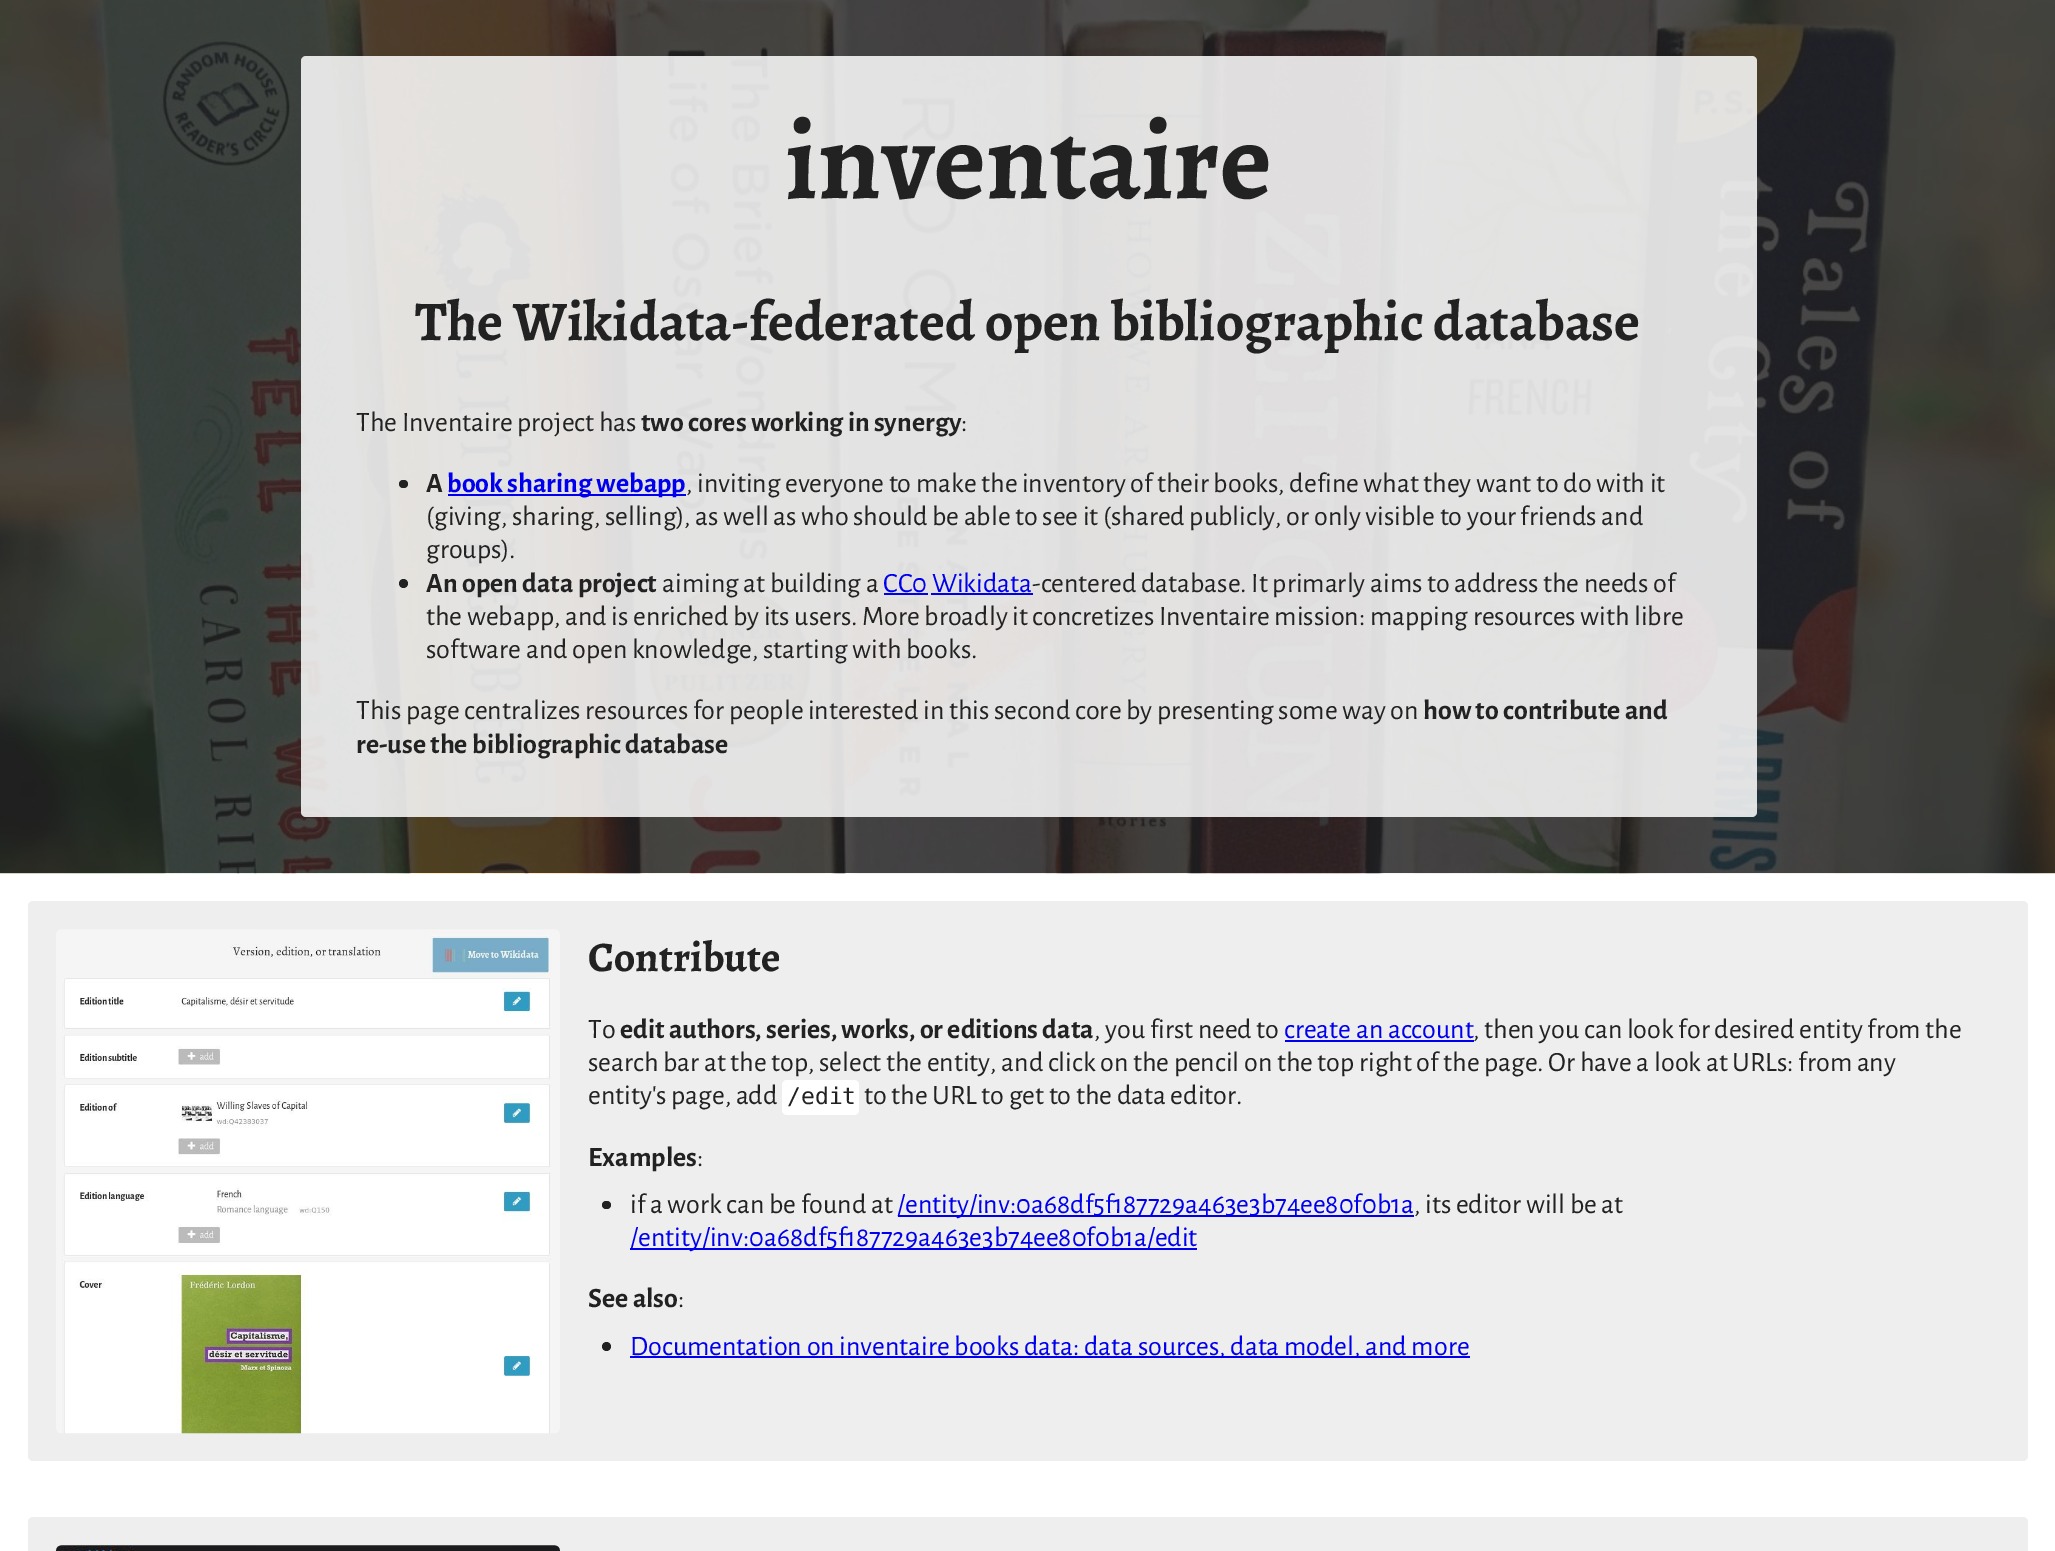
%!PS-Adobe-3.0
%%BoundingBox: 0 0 2055 1551
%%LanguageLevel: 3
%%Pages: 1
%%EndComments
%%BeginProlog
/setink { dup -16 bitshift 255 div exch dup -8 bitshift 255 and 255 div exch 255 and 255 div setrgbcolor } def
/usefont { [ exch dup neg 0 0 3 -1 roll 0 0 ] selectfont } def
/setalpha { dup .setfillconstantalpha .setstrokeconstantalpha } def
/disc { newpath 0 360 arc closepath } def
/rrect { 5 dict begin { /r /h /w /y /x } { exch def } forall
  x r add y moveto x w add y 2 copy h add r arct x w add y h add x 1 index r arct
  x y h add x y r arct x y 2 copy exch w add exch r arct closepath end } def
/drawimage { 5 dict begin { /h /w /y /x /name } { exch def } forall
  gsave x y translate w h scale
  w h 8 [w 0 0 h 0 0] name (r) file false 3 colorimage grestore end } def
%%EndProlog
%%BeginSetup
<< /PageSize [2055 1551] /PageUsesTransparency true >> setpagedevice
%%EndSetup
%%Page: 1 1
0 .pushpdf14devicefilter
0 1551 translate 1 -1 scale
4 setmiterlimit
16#FFFFFF setink
0 0 2055 1551 rectfill
(img1.raw) 0 0 2055 874 drawimage
0.85 setalpha
301 56 1456 761 5 rrect fill
/Alegreya-Bold 112 usefont
1 setalpha
16#222222 setink
785 198 moveto (inventaire) show
/Alegreya-Bold 56 usefont
415 340 moveto (The Wikidata-federated open bibliographic database) show
/AlegreyaSans-Regular 28 usefont
356 431 moveto (The Inventaire project has) show
/AlegreyaSans-Bold 28 usefont
641 431 moveto (two cores working in synergy) show
/AlegreyaSans-Regular 28 usefont
961 431 moveto (:) show
399 480 9 8 4 rrect fill
/AlegreyaSans-Bold 28 usefont
426 492 moveto (A) show
16#0000EE setink
448 494 238 2 rectfill
447 492 moveto (book sharing webapp) show
/AlegreyaSans-Regular 28 usefont
16#222222 setink
[
    [(, inviting everyone to make the inventory of their books, define what they want to do with it) 686 492]
    [(\(giving, sharing, selling\), as well as who should be able to see it \(shared publicly, or only visible to your friends and) 426 525]
    [(groups\).) 426 558]
] { aload pop moveto show } forall
403.5 583.5 4.5 disc fill
/AlegreyaSans-Bold 28 usefont
426 592 moveto (An open data project) show
/AlegreyaSans-Regular 28 usefont
662 592 moveto (aiming at building a) show
16#0000EE setink
883 592 moveto (CC0 Wikidata) show
884 593 44 2 rectfill
931 593 102 2 rectfill
16#222222 setink
[
    [(-centered database. It primarly aims to address the needs of) 1032 592]
    [(the webapp, and is enriched by its users. More broadly it concretizes Inventaire mission: mapping resources with libre) 426 625]
    [(software and open knowledge, starting with books.) 426 658]
    [(This page centralizes resources for people interested in this second core by presenting some way on) 356 719]
] { aload pop moveto show } forall
/AlegreyaSans-Bold 28 usefont
1423 719 moveto (how to contribute and) show
356 753 moveto (re-use the bibliographic database) show
16#EEEEEE setink
28 901 2000 560 5 rrect fill
(img2.raw) 56 929 504 505 drawimage
/Alegreya-Bold 42 usefont
16#222222 setink
588 971 moveto (Contribute) show
/AlegreyaSans-Regular 28 usefont
588 1038 moveto (To) show
/AlegreyaSans-Bold 28 usefont
620 1038 moveto (edit authors, series, works, or editions data) show
/AlegreyaSans-Regular 28 usefont
1094 1038 moveto (, you first need to) show
16#0000EE setink
1284 1038 moveto (create an account) show
1285 1040 189 2 rectfill
16#222222 setink
[
    [(, then you can look for desired entity from the) 1473 1038]
    [(search bar at the top, select the entity, and click on the pencil on the top right of the page. Or have a look at URLs: from any) 588 1071]
    [(entity's page, add) 588 1104]
] { aload pop moveto show } forall
16#FFFFFF setink
782 1080 77 35 5 rrect fill
/DejaVuSansMono-Regular 23 usefont
16#222222 setink
787 1104 moveto (/edit) show
/AlegreyaSans-Regular 28 usefont
864 1104 moveto (to the URL to get to the data editor.) show
/AlegreyaSans-Bold 28 usefont
588 1166 moveto (Examples) show
/AlegreyaSans-Regular 28 usefont
697 1166 moveto (:) show
602 1201 9 8 4 rrect fill
630 1213 moveto (if a work can be found at) show
16#0000EE setink
898 1215 516 2 rectfill
897 1213 moveto (/entity/inv:0a68df5f187729a463e3b74ee80f0b1a) show
16#222222 setink
1414 1213 moveto (, its editor will be at) show
16#0000EE setink
630 1248 567 2 rectfill
630 1246 moveto (/entity/inv:0a68df5f187729a463e3b74ee80f0b1a/edit) show
/AlegreyaSans-Bold 28 usefont
16#222222 setink
588 1307 moveto (See also) show
/AlegreyaSans-Regular 28 usefont
678 1307 moveto (:) show
606.5 1346.5 4.5 disc fill
16#0000EE setink
630 1356 840 2 rectfill
630 1355 moveto (Documentation on inventaire books data: data sources, data model, and more) show
16#EEEEEE setink
28 1517 2000 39 5 rrect fill
(img3.raw) 55 1545 505 6 drawimage
.poppdf14devicefilter showpage
%%EOF
